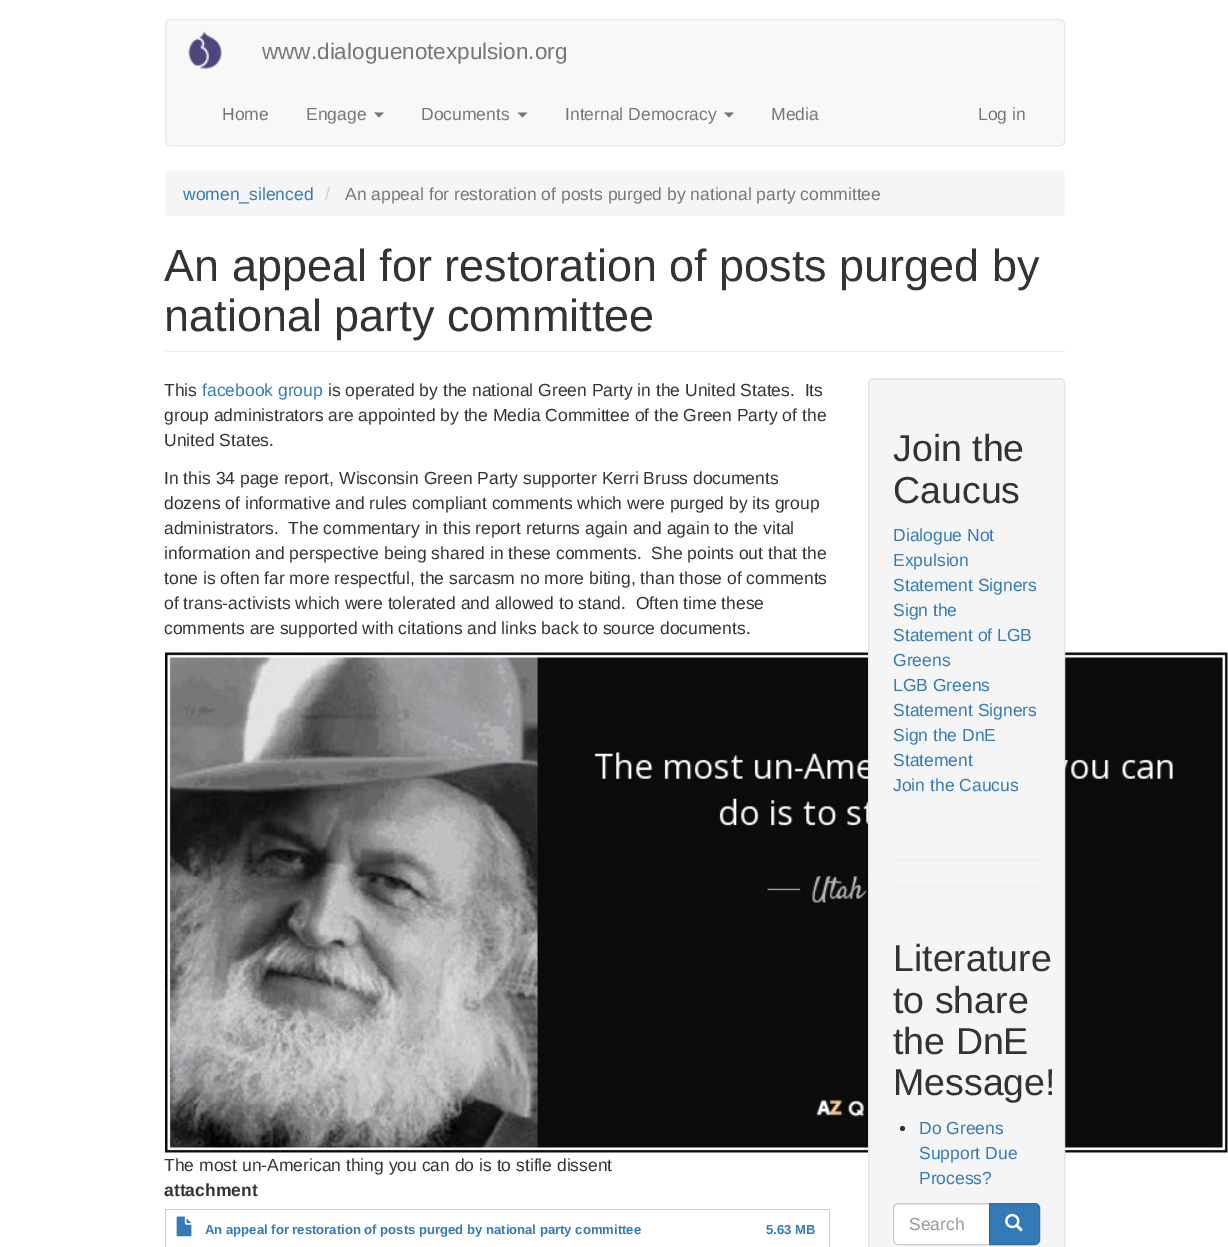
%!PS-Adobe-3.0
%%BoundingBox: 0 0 1228 1247
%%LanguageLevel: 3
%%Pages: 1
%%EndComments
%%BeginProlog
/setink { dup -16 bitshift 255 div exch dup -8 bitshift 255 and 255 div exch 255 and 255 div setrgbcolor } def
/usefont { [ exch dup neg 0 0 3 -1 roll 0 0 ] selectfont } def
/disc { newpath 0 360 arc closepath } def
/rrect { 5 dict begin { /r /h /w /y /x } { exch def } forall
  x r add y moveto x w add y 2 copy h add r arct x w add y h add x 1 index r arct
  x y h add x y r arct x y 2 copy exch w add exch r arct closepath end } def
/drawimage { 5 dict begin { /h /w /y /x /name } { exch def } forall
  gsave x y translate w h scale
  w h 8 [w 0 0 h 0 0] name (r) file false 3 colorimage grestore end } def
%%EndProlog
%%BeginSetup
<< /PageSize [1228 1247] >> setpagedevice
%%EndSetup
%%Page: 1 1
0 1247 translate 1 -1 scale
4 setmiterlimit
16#FFFFFF setink
0 0 1228 1247 rectfill
16#F8F8F8 setink
165.5 19.5 899 126 4.5 rrect gsave fill grestore
16#E7E7E7 setink
stroke
(img1.raw) 188 31 34 38 drawimage
/LiberationSans-Regular 22.5 usefont
16#777777 setink
262 59 moveto (www.dialoguenotexpulsion.org) show
/LiberationSans-Regular 17.5 usefont
222 120 moveto (Home) show
306 120 moveto (Engage) show
374 112.5 moveto 384 112.5 lineto 379 117.5 lineto closepath fill
421 120 moveto (Documents) show
517.5 112.5 moveto 527.5 112.5 lineto 522.5 117.5 lineto closepath fill
565 120 moveto (Internal Democracy) show
724 112.5 moveto 734 112.5 lineto 729 117.5 lineto closepath fill
771 120 moveto (Media) show
978 120 moveto (Log in) show
16#F5F5F5 setink
165 171 900 45 5 rrect fill
16#337AB7 setink
183 200 moveto (women_silenced) show
16#CCCCCC setink
325 200 moveto (/) show
16#777777 setink
345 200 moveto (An appeal for restoration of posts purged by national party committee) show
16#EEEEEE setink
165 351 900 1 rectfill
/LiberationSans-Regular 45 usefont
16#333333 setink
164 281 moveto (An appeal for restoration of posts purged by) show
164 331 moveto (national party committee) show
/LiberationSans-Regular 17.5 usefont
164 396 moveto (This) show
16#337AB7 setink
202 396 moveto (facebook group) show
16#333333 setink
[
    [(is operated by the national Green Party in the United States.  Its) 328 396]
    [(group administrators are appointed by the Media Committee of the Green Party of the) 164 421]
    [(United States.) 164 446]
    [(In this 34 page report, Wisconsin Green Party supporter Kerri Bruss documents) 164 484]
    [(dozens of informative and rules compliant comments which were purged by its group) 164 509]
    [(administrators.  The commentary in this report returns again and again to the vital) 164 534]
    [(information and perspective being shared in these comments.  She points out that the) 164 559]
    [(tone is often far more respectful, the sarcasm no more biting, than those of comments) 164 584]
    [(of trans-activists which were tolerated and allowed to stand.  Often time these) 164 609]
    [(comments are supported with citations and links back to source documents.) 164 634]
] { aload pop moveto show } forall
(img2.raw) 165 652 1063 501 drawimage
164 1171 moveto (The most un-American thing you can do is to stifle dissent) show
/LiberationSans-Bold 17.5 usefont
164 1196 moveto (attachment) show
16#CCCCCC setink
165 1209 665 1 rectfill
165 1209 1 38 rectfill
(img3.raw) 176 1216 16 21 drawimage
/LiberationSans-Bold 13.1 usefont
16#337AB7 setink
205 1234 moveto (An appeal for restoration of posts purged by national party committee) show
16#CCCCCC setink
829 1209 1 38 rectfill
16#337AB7 setink
766 1234 moveto (5.63 MB) show
16#F5F5F5 setink
868 378 197 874 5 rrect fill
16#E9E9E9 setink
872 380 moveto 1060 380 lineto 1062 380 1064 382 1064 384 curveto 1064 383 lineto 1064 381 1062 379 1060 379 curveto 873 379 lineto 871 379 869 381 869 383 curveto 869 384 lineto 869 382 870 380 872 380 curveto closepath fill
16#E3E3E3 setink
868.5 378.5 196 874 4.5 rrect stroke
/LiberationSans-Regular 37.5 usefont
16#333333 setink
893 461 moveto (Join the) show
893 503 moveto (Caucus) show
/LiberationSans-Regular 17.5 usefont
16#337AB7 setink
[
    [(Dialogue Not) 893 541]
    [(Expulsion) 893 566]
    [(Statement Signers) 893 591]
    [(Sign the) 893 616]
    [(Statement of LGB) 893 641]
    [(Greens) 893 666]
    [(LGB Greens) 893 691]
    [(Statement Signers) 893 716]
    [(Sign the DnE) 893 741]
    [(Statement) 893 766]
    [(Join the Caucus) 893 791]
] { aload pop moveto show } forall
16#EEEEEE setink
893 860 147 1 rectfill
893 886 147 1 rectfill
/LiberationSans-Regular 37.5 usefont
16#333333 setink
[
    [(Literature) 893 971]
    [(to share) 893 1013]
    [(the DnE) 893 1054]
    [(Message!) 893 1095]
] { aload pop moveto show } forall
902.5 1128.5 2.5 disc fill
/LiberationSans-Regular 17.5 usefont
16#337AB7 setink
[
    [(Do Greens) 919 1134]
    [(Support Due) 919 1159]
    [(Process?) 919 1184]
] { aload pop moveto show } forall
16#FFFFFF setink
898 1203 moveto 990 1203 lineto 990 1245 lineto 898 1245 lineto 895 1245 893 1243 893 1240 curveto 893 1208 lineto 893 1205 895 1203 898 1203 curveto closepath fill
16#ECECEC setink
898 1205 moveto 989 1205 lineto 989 1204 lineto 898 1204 lineto 896 1204 894 1206 894 1208 curveto 894 1209 lineto 894 1207 895 1205 898 1205 curveto closepath fill
16#CCCCCC setink
898 1203.5 moveto 989.5 1203.5 lineto 989.5 1244.5 lineto 898 1244.5 lineto 895.5 1244.5 893.5 1242.5 893.5 1240 curveto 893.5 1208 lineto 893.5 1205.5 895.5 1203.5 898 1203.5 curveto closepath stroke
16#999999 setink
909 1230 moveto (Search) show
16#337AB7 setink
989.5 1203.5 moveto 1035 1203.5 lineto 1037.5 1203.5 1039.5 1205.5 1039.5 1208 curveto 1039.5 1240 lineto 1039.5 1242.5 1037.5 1244.5 1035 1244.5 curveto 989.5 1244.5 lineto closepath gsave fill grestore
16#2E6DA4 setink
stroke
(img4.raw) 1005 1213 18 19 drawimage
showpage
%%EOF
